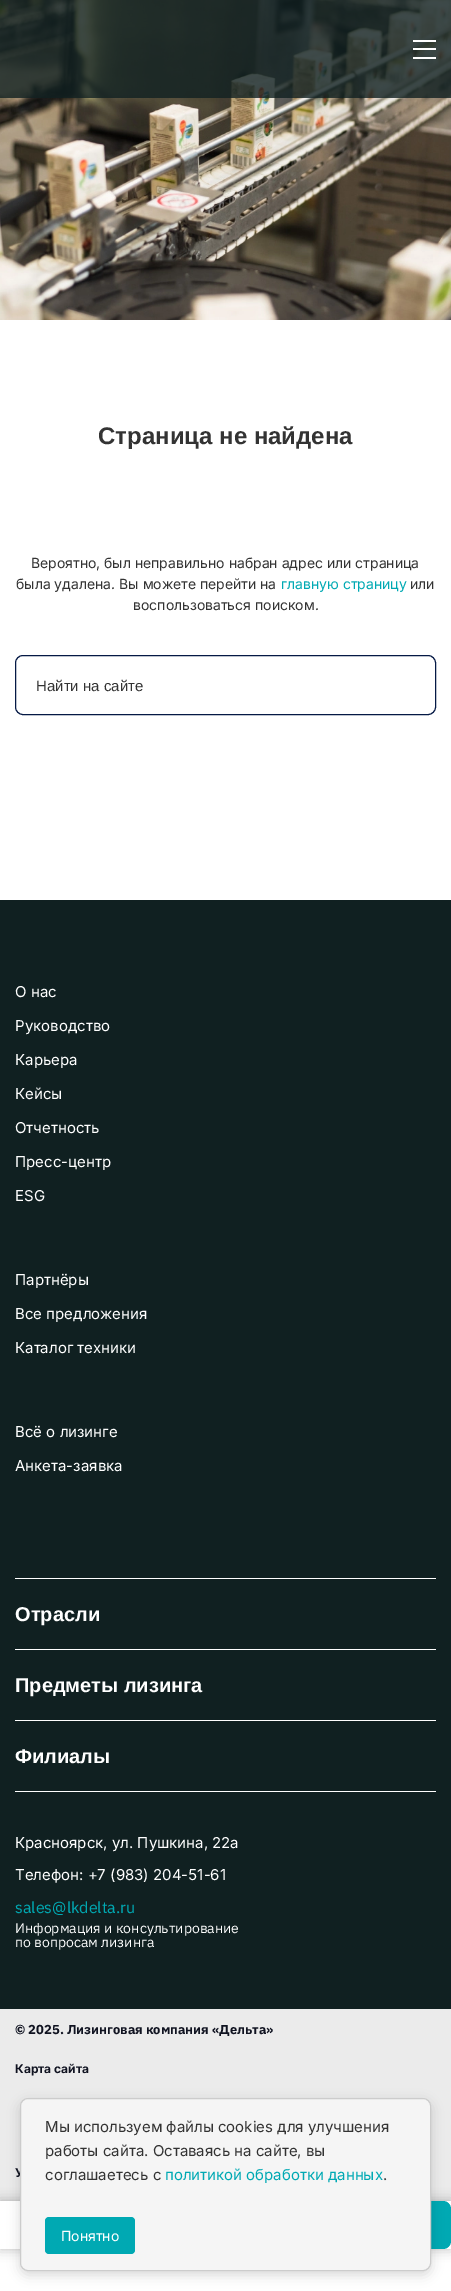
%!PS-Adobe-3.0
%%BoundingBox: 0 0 451 2291
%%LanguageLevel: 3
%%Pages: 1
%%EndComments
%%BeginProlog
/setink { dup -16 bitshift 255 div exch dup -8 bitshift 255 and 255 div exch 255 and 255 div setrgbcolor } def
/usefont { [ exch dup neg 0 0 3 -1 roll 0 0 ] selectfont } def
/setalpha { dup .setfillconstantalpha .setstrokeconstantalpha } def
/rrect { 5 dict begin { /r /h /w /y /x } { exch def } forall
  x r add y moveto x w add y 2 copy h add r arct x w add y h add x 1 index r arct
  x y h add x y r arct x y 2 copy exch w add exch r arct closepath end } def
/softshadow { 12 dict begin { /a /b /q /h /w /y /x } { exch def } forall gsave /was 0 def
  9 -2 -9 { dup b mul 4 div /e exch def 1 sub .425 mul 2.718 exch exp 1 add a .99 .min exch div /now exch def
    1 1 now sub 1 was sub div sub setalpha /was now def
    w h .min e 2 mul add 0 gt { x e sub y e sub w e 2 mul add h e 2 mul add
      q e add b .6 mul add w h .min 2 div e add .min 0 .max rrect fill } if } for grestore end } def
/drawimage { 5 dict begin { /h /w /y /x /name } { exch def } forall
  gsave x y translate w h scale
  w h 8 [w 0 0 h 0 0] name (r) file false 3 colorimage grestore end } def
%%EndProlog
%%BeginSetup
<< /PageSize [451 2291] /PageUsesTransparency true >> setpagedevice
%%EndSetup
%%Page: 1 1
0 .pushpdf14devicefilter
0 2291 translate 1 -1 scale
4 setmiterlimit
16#FFFFFF setink
0 0 451 2291 rectfill
(img1.raw) 0 0 451 320 drawimage
0.8 setalpha
[
    [0 0 451 98 16#102021]
] { aload pop setink rectfill } forall
1 setalpha
[
    [413 40 23 2 16#FFFFFF]
    [413 48 23 2 16#FFFFFF]
    [413 57 23 2 16#FFFFFF]
] { aload pop setink rectfill } forall
/LiberationSans-Bold 24 usefont
16#333333 setink
98 444 moveto (Страница не найдена) show
/Inter-Regular 14 usefont
31 568 moveto (Вероятно, был неправильно набран адрес или страница) show
16 589 moveto (была удалена. Вы можете перейти на) show
16#00A9B3 setink
281 589 moveto (главную страницу) show
16#333333 setink
410 589 moveto (или) show
133 610 moveto (воспользоваться поиском.) show
16#051945 setink
15.5 655.5 420 59 7.5 rrect stroke
/LiberationSans-Regular 15 usefont
16#333333 setink
36 691 moveto (Найти на сайте) show
16#102021 setink
0 900 451 1109 rectfill
/Inter-Regular 15 usefont
16#FFFFFF setink
[
    [(О нас) 15 997]
    [(Руководство) 15 1031]
    [(Карьера) 15 1065]
    [(Кейсы) 15 1099]
    [(Отчетность) 15 1133]
    [(Пресс-центр) 15 1167]
    [(ESG) 15 1201]
    [(Партнёры) 15 1285]
    [(Все предложения) 15 1319]
    [(Каталог техники) 15 1353]
    [(Всё о лизинге) 15 1437]
    [(Анкета-заявка) 15 1471]
] { aload pop moveto show } forall
15 1578 421 1 rectfill
15 1649 421 1 rectfill
/LiberationSans-Bold 20 usefont
15 1621 moveto (Отрасли) show
15 1720 421 1 rectfill
15 1692 moveto (Предметы лизинга) show
15 1791 421 1 rectfill
15 1763 moveto (Филиалы) show
/Inter-Regular 15 usefont
15 1848 moveto (Красноярск, ул. Пушкина, 22а) show
15 1880 moveto (Телефон: +7 \(983\) 204-51-61) show
/IBMPlexSans-Regular 16 usefont
16#00A9B3 setink
15 1913 moveto (sales@lkdelta.ru) show
/IBMPlexSans-Regular 14 usefont
16#FFFFFF setink
15 1933 moveto (Информация и консультирование) show
15 1947 moveto (по вопросам лизинга) show
16#EBEBEB setink
0 2009 451 192 rectfill
/IBMPlexSans-Bold 13 usefont
16#101321 setink
15 2034 moveto (© 2025. Лизинговая компания «Дельта») show
/Inter-Bold 12 usefont
15 2073 moveto (Карта сайта) show
15 2177 moveto (У) show
gsave
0 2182 moveto 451 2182 lineto 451 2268 lineto 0 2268 lineto closepath 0 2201 moveto 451 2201 lineto 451 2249 lineto 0 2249 lineto closepath eoclip newpath
16#000000 setink
0 2201 451 48 0 6 0.25 softshadow
grestore
16#00A9B3 setink
226 2201 225 48 8 rrect fill
16#000000 setink
20 2102 411 173 8 6 0.15 softshadow
16#F5F5F5 setink
20.5 2098.5 410 172 7.5 rrect gsave fill grestore
16#CCCCCC setink
stroke
/Inter-Regular 15 usefont
16#333333 setink
[
    [(Мы используем файлы cookies для улучшения) 45 2132]
    [(работы сайта. Оставаясь на сайте, вы) 45 2156]
    [(соглашаетесь с) 45 2180]
] { aload pop moveto show } forall
16#00A9B3 setink
165 2180 moveto (политикой обработки данных) show
16#333333 setink
383 2180 moveto (.) show
16#00A9B3 setink
45 2217 90 37 4 rrect fill
/Inter-Regular 14 usefont
16#FFFFFF setink
61 2241 moveto (Понятно) show
.poppdf14devicefilter showpage
%%EOF
